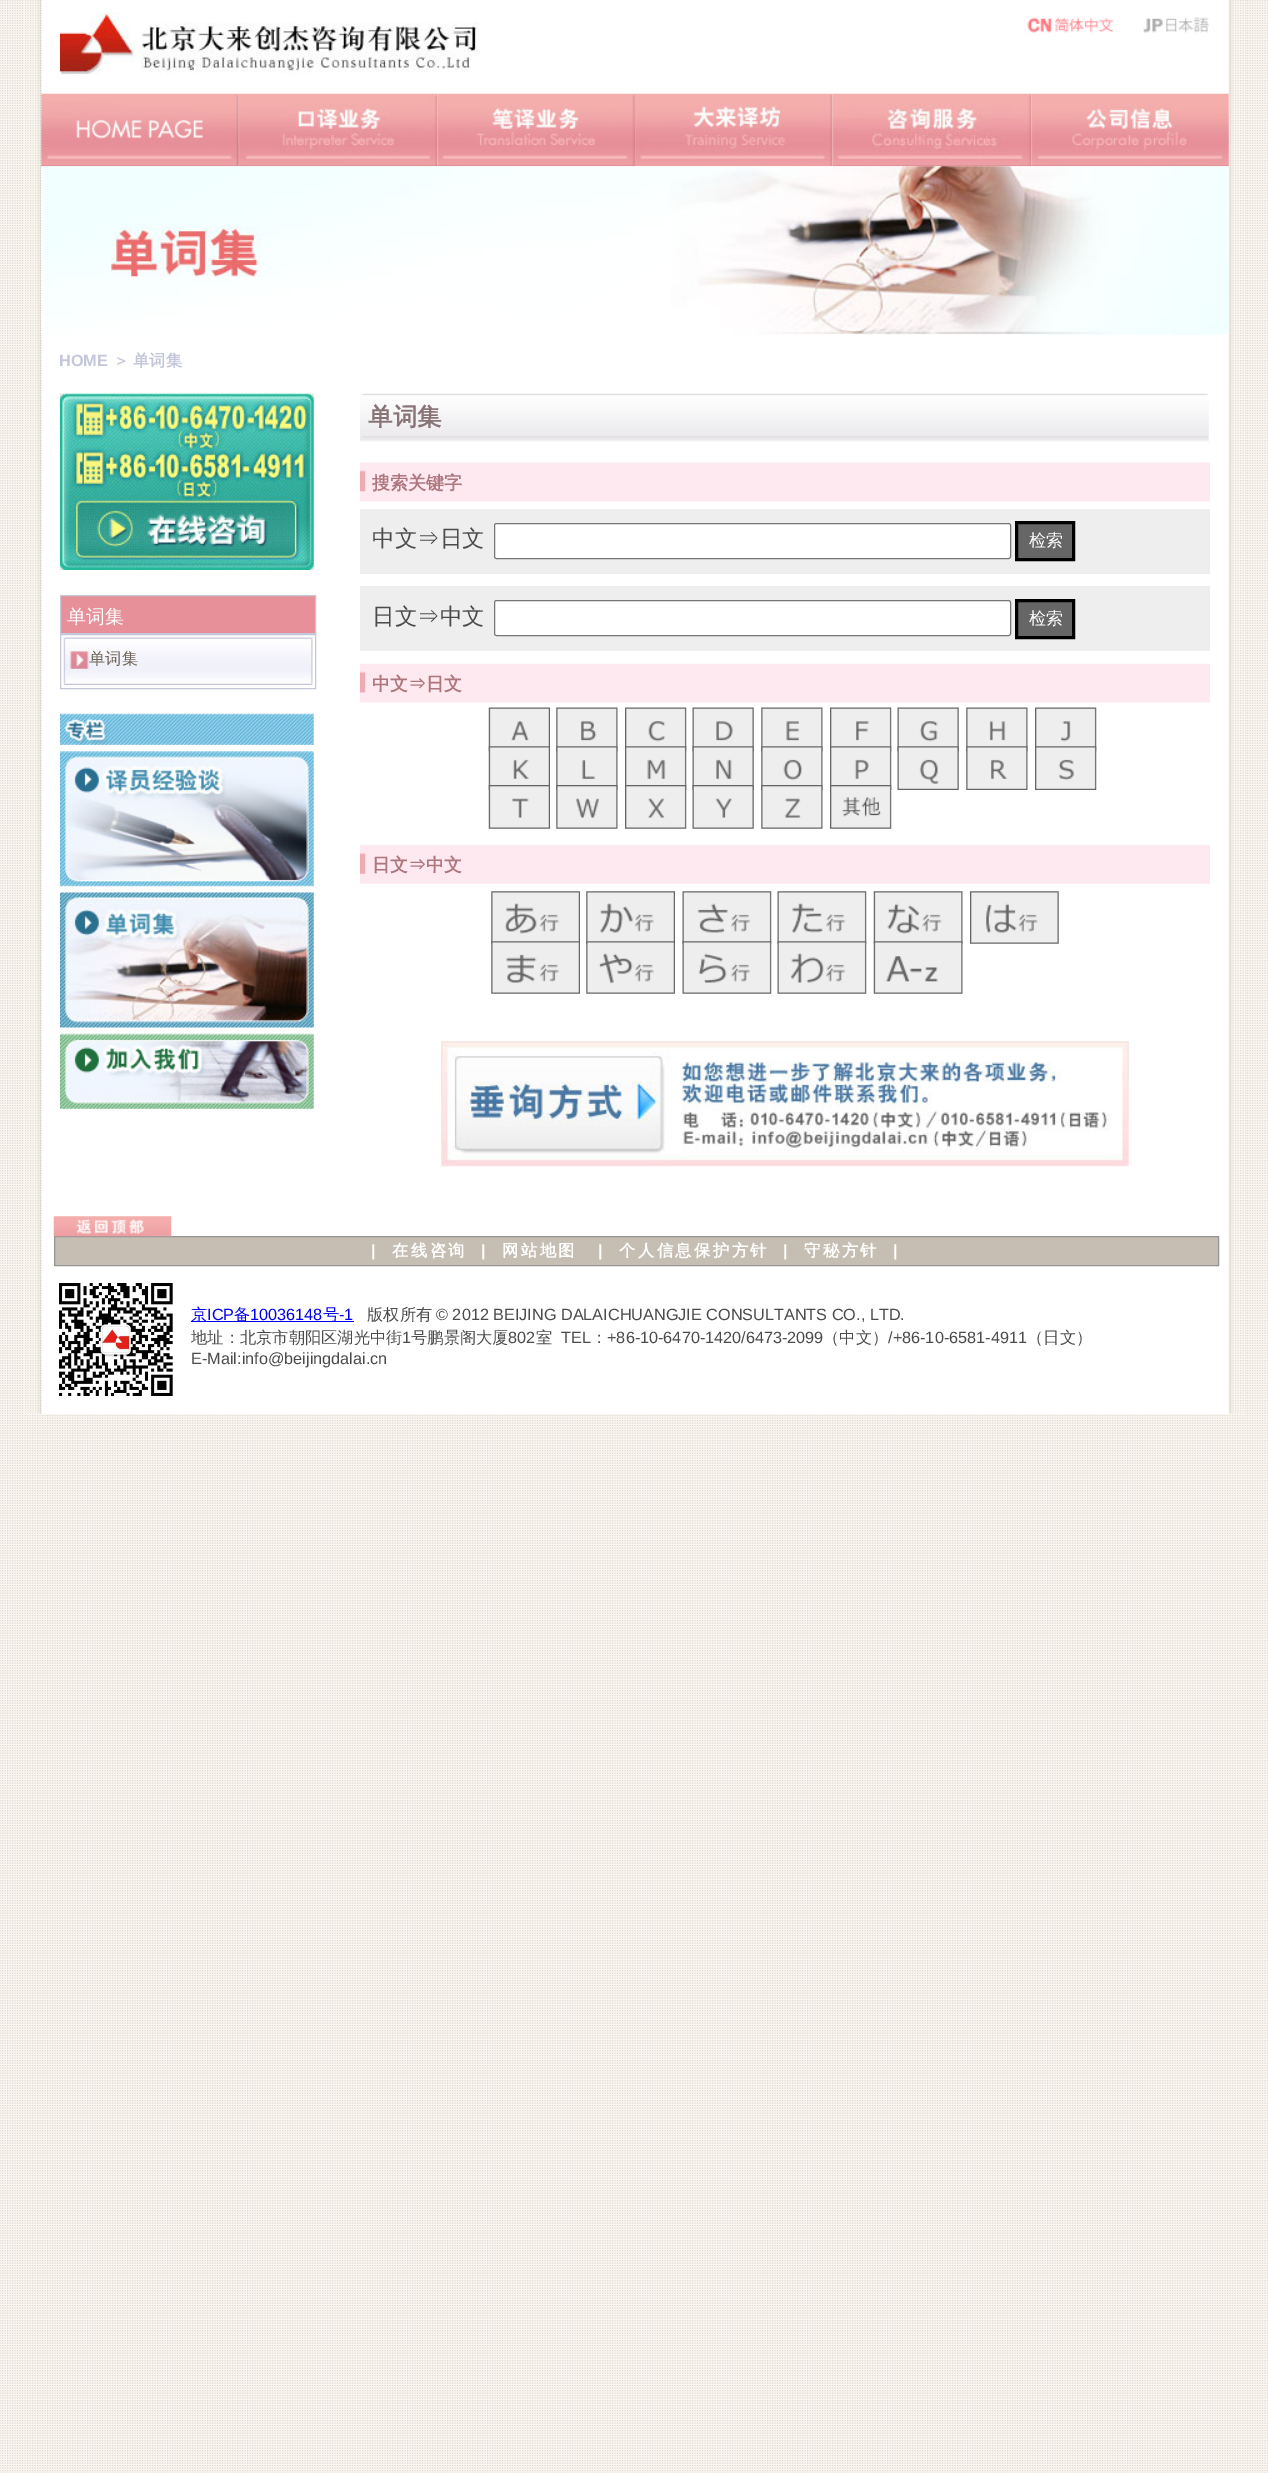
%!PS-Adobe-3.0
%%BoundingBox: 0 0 1268 2473
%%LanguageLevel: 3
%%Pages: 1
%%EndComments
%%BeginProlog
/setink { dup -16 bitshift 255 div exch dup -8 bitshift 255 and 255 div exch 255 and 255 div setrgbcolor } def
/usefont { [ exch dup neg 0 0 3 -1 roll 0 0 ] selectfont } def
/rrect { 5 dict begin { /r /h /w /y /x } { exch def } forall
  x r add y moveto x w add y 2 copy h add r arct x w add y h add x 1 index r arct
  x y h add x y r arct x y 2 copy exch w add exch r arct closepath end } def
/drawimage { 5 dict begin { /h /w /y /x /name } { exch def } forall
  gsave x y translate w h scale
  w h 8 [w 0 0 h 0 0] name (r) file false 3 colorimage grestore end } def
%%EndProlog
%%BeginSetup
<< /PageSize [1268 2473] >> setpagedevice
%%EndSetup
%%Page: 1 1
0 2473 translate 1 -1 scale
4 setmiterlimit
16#FFFFFF setink
0 0 1268 2473 rectfill
(img1.raw) 0 0 1268 2473 drawimage
(img2.raw) 24 0 1223 1414 drawimage
(img3.raw) 60 12 419 63 drawimage
(img4.raw) 1027 17 87 16 drawimage
(img5.raw) 1143 17 66 16 drawimage
(img6.raw) 41 93 198 74 drawimage
(img7.raw) 238 93 200 74 drawimage
(img8.raw) 437 93 198 74 drawimage
(img9.raw) 635 93 198 74 drawimage
(img10.raw) 832 93 200 74 drawimage
(img11.raw) 1031 93 198 74 drawimage
(img12.raw) 41 166 1188 169 drawimage
/LiberationSans-Bold 16.25 usefont
16#C4C7D9 setink
59 366 moveto (HOME) show
/WenQuanYiZenHei-Bold 16.25 usefont
113 366 moveto (＞) show
133 366 moveto (单词集) show
(img13.raw) 60 393 255 177 drawimage
16#E7909A setink
60.5 595.5 moveto 315.5 595.5 lineto 315.5 633.5 lineto 60.5 633.5 lineto closepath gsave fill grestore
16#C4C7D9 setink
stroke
/WenQuanYiZenHei-Medium 19 usefont
16#FFFFFF setink
67 623 moveto (单词集) show
16#C4C7D9 setink
60.5 634.5 255 54 rectstroke
(img14.raw) 63 637 250 48 drawimage
/WenQuanYiZenHei-Medium 16.25 usefont
16#6D6354 setink
89 664 moveto (单词集) show
(img15.raw) 60 713 254 32 drawimage
(img16.raw) 60 751 254 136 drawimage
(img17.raw) 60 892 254 136 drawimage
(img18.raw) 60 1033 254 76 drawimage
(img19.raw) 360 393 849 49 drawimage
/WenQuanYiZenHei-Bold 24.5 usefont
16#887477 setink
368 425 moveto (单词集) show
(img20.raw) 360 462 850 40 drawimage
/WenQuanYiZenHei-Bold 18 usefont
16#AE767D setink
372 489 moveto (搜索关键字) show
16#EEEEEE setink
360 509 850 65 rectfill
/WenQuanYiZenHei-Medium 22.5 usefont
16#4B4B4B setink
372 546 moveto (中文⇒日文) show
16#FFFFFF setink
494.5 523.5 516 35 2 rrect gsave fill grestore
16#767676 setink
stroke
16#666666 setink
1016.5 522.5 moveto 1073.5 522.5 lineto 1073.5 559.5 lineto 1016.5 559.5 lineto closepath gsave fill grestore
16#000000 setink
3 setlinewidth
stroke
/WenQuanYiZenHei-Medium 17 usefont
16#FFFFFF setink
1029 546 moveto (检索) show
16#EEEEEE setink
360 586 850 65 rectfill
/WenQuanYiZenHei-Medium 22.5 usefont
16#4B4B4B setink
372 624 moveto (日文⇒中文) show
16#FFFFFF setink
494.5 600.5 516 35 2 rrect gsave fill grestore
16#767676 setink
1 setlinewidth
stroke
16#666666 setink
1016.5 600.5 moveto 1073.5 600.5 lineto 1073.5 637.5 lineto 1016.5 637.5 lineto closepath gsave fill grestore
16#000000 setink
3 setlinewidth
stroke
/WenQuanYiZenHei-Medium 17 usefont
16#FFFFFF setink
1029 624 moveto (检索) show
(img21.raw) 360 663 850 40 drawimage
/WenQuanYiZenHei-Bold 18 usefont
16#AE767D setink
372 690 moveto (中文⇒日文) show
(img22.raw) 488 707 62 45 drawimage
(img23.raw) 556 707 62 45 drawimage
(img24.raw) 625 707 62 45 drawimage
(img25.raw) 692 707 62 45 drawimage
(img26.raw) 761 707 62 45 drawimage
(img27.raw) 830 707 62 45 drawimage
(img28.raw) 897 707 62 45 drawimage
(img29.raw) 966 707 62 45 drawimage
(img30.raw) 1035 707 62 45 drawimage
(img31.raw) 488 746 62 44 drawimage
(img32.raw) 556 746 62 44 drawimage
(img33.raw) 625 746 62 44 drawimage
(img34.raw) 692 746 62 44 drawimage
(img35.raw) 761 746 62 44 drawimage
(img36.raw) 830 746 62 44 drawimage
(img37.raw) 897 746 62 44 drawimage
(img38.raw) 966 746 62 44 drawimage
(img39.raw) 1035 746 62 44 drawimage
(img40.raw) 488 785 62 44 drawimage
(img41.raw) 556 785 62 44 drawimage
(img42.raw) 625 785 62 44 drawimage
(img43.raw) 692 785 62 44 drawimage
(img44.raw) 761 785 62 44 drawimage
(img45.raw) 830 785 62 44 drawimage
(img46.raw) 360 845 850 39 drawimage
372 871 moveto (日文⇒中文) show
(img47.raw) 491 891 89 53 drawimage
(img48.raw) 586 891 89 53 drawimage
(img49.raw) 682 891 90 53 drawimage
(img50.raw) 777 891 90 53 drawimage
(img51.raw) 873 891 90 53 drawimage
(img52.raw) 970 891 89 53 drawimage
(img53.raw) 491 941 89 53 drawimage
(img54.raw) 586 941 89 53 drawimage
(img55.raw) 682 941 90 53 drawimage
(img56.raw) 777 941 90 53 drawimage
(img57.raw) 873 941 90 53 drawimage
(img58.raw) 441 1041 688 126 drawimage
16#C6BEB2 setink
54.5 1236.5 moveto 1218.5 1236.5 lineto 1218.5 1265.5 lineto 54.5 1265.5 lineto closepath gsave fill grestore
16#949494 setink
1 setlinewidth
stroke
(img59.raw) 53 1216 119 21 drawimage
/LiberationSans-Bold 16.25 usefont
16#FFFFFF setink
371 1256 moveto 2.5 0 (|) ashow
/WenQuanYiZenHei-Bold 16.25 usefont
392 1256 moveto 2.5 0 (在线咨询) ashow
/LiberationSans-Bold 16.25 usefont
481 1256 moveto 2.5 0 (|) ashow
/WenQuanYiZenHei-Bold 16.25 usefont
502 1256 moveto 2.5 0 (网站地图) ashow
/LiberationSans-Bold 16.25 usefont
598 1256 moveto 2.5 0 (|) ashow
/WenQuanYiZenHei-Bold 16.25 usefont
619 1256 moveto 2.5 0 (个人信息保护方针) ashow
/LiberationSans-Bold 16.25 usefont
783 1256 moveto 2.5 0 (|) ashow
/WenQuanYiZenHei-Bold 16.25 usefont
804 1256 moveto 2.5 0 (守秘方针) ashow
/LiberationSans-Bold 16.25 usefont
893 1256 moveto 2.5 0 (|) ashow
(img60.raw) 59 1283 114 113 drawimage
16#0000EE setink
191 1321 163 1 rectfill
/WenQuanYiZenHei-Medium 16.25 usefont
191 1320 moveto (京) show
/LiberationSans-Regular 16.25 usefont
207 1320 moveto (ICP) show
/WenQuanYiZenHei-Medium 16.25 usefont
234 1320 moveto (备) show
/LiberationSans-Regular 16.25 usefont
250 1320 moveto (10036148) show
/WenQuanYiZenHei-Medium 16.25 usefont
323 1320 moveto (号) show
/LiberationSans-Regular 16.25 usefont
339 1320 moveto (-1) show
/WenQuanYiZenHei-Medium 16.25 usefont
16#4B4B4B setink
367 1320 moveto (版权所有) show
/LiberationSans-Regular 16.25 usefont
436 1320 moveto (© 2012 BEIJING DALAICHUANGJIE CONSULTANTS CO., LTD.) show
/WenQuanYiZenHei-Medium 16.25 usefont
191 1343 moveto (地址：北京市朝阳区湖光中街) show
/LiberationSans-Regular 16.25 usefont
402 1343 moveto (1) show
/WenQuanYiZenHei-Medium 16.25 usefont
411 1343 moveto (号鹏景阁大厦) show
/LiberationSans-Regular 16.25 usefont
508 1343 moveto (802) show
/WenQuanYiZenHei-Medium 16.25 usefont
536 1343 moveto (室) show
/LiberationSans-Regular 16.25 usefont
561 1343 moveto (TEL) show
/WenQuanYiZenHei-Medium 16.25 usefont
591 1343 moveto (：) show
/LiberationSans-Regular 16.25 usefont
607 1343 moveto (+86-10-6470-1420/6473-2099) show
/WenQuanYiZenHei-Medium 16.25 usefont
823 1343 moveto (（中文）) show
/LiberationSans-Regular 16.25 usefont
888 1343 moveto (/+86-10-6581-4911) show
/WenQuanYiZenHei-Medium 16.25 usefont
1027 1343 moveto (（日文）) show
/LiberationSans-Regular 16.25 usefont
191 1364 moveto (E-Mail:info@beijingdalai.cn) show
showpage
%%EOF
